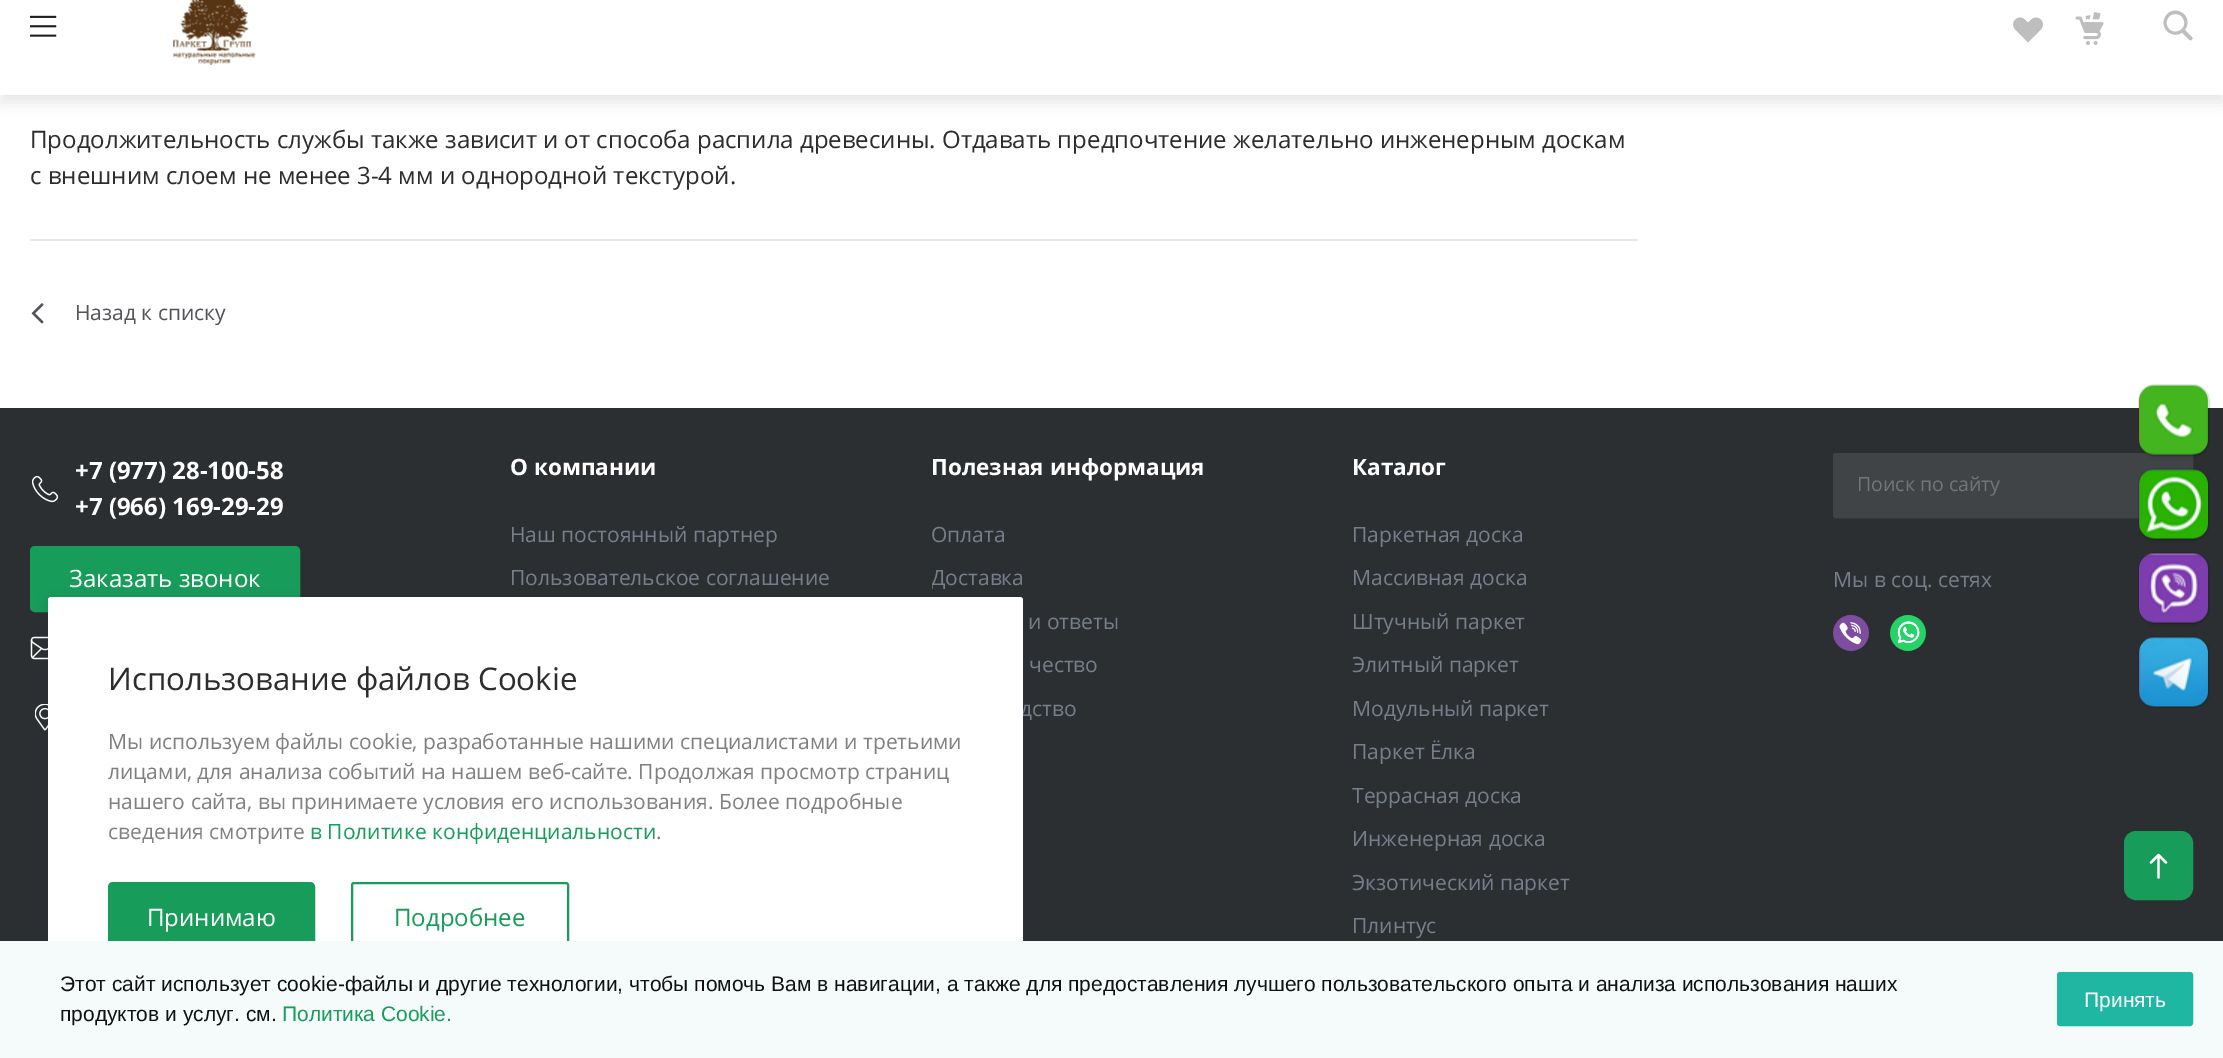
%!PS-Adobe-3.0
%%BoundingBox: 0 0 2223 1058
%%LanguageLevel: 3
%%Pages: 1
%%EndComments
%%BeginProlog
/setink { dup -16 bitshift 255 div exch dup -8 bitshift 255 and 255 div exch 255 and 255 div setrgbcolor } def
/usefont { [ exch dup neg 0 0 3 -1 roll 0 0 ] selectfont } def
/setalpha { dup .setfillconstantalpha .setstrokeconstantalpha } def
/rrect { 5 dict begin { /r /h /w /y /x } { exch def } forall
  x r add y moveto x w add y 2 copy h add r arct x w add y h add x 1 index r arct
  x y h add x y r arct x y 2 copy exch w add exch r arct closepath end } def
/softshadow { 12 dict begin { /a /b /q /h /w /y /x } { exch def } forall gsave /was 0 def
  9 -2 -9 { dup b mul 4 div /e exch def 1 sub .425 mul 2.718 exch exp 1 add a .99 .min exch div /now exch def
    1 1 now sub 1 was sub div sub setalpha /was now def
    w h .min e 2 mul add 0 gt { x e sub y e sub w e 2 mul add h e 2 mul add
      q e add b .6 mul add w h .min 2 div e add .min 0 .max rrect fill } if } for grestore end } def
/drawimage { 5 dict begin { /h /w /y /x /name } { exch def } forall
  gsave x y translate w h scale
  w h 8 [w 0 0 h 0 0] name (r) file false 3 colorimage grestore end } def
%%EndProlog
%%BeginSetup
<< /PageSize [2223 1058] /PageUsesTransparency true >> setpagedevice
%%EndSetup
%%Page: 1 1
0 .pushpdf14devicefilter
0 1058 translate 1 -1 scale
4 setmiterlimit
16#FFFFFF setink
0 0 2223 1058 rectfill
16#000000 setink
0 -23 2223 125 0 7.5 0.1 softshadow
16#FFFFFF setink
0 0 2223 95 rectfill
(img1.raw) 30 15 27 22 drawimage
(img2.raw) 173 0 83 65 drawimage
(img3.raw) 2013 17 30 26 drawimage
(img4.raw) 2075 12 29 33 drawimage
(img5.raw) 2163 10 30 31 drawimage
16#2B2F32 setink
0 408 2223 533 rectfill
16#179C5A setink
2125.5 832.5 66 66 10.5 rrect gsave fill grestore
3 setlinewidth
stroke
16#FFFFFF setink
2.2 setlinewidth
1 setlinecap
1 setlinejoin
2166 862.5 moveto 2158.5 855 lineto 2151 862.5 lineto 2158.5 877.5 moveto 2158.5 855 lineto stroke
/OpenSans-Regular 24 usefont
16#2D2D2D setink
30 148 moveto (Продолжительность службы также зависит и от способа распила древесины. Отдавать предпочтение желательно инженерным доскам) show
30 184 moveto (с внешним слоем не менее 3-4 мм и однородной текстурой.) show
16#E8E8E8 setink
30 239 1608 2 rectfill
(img6.raw) 31 303 13 21 drawimage
/OpenSans-Regular 21 usefont
16#525458 setink
75 320 moveto (Назад к списку) show
(img7.raw) 32 476 27 27 drawimage
/OpenSans-Bold 24 usefont
16#FFFFFF setink
75 479 moveto (+7 \(977\) 28-100-58) show
75 515 moveto (+7 \(966\) 169-29-29) show
16#179C5A setink
31.5 547.5 267 63 3.5 rrect gsave fill grestore
3 setlinewidth
0 setlinecap
0 setlinejoin
stroke
/OpenSans-Regular 24 usefont
16#FFFFFF setink
69 587 moveto (Заказать звонок) show
(img8.raw) 30 636 18 24 drawimage
(img9.raw) 35 704 13 27 drawimage
/OpenSans-Bold 22.5 usefont
510 475 moveto (О компании) show
/OpenSans-Regular 21 usefont
16#777E89 setink
510 542 moveto (Наш постоянный партнер) show
510 585 moveto (Пользовательское соглашение) show
/OpenSans-Bold 22.5 usefont
16#FFFFFF setink
931 475 moveto (Полезная информация) show
/OpenSans-Regular 21 usefont
16#777E89 setink
931 542 moveto (Оплата) show
gsave
932 476 390 297 rectclip
931 585 moveto (Доставка) show
grestore
[
    [(и ответы) 1028 629]
    [(чество) 1029 672]
    [(дство) 1020 716]
] { aload pop moveto show } forall
/OpenSans-Bold 22.5 usefont
16#FFFFFF setink
1352 475 moveto (Каталог) show
/OpenSans-Regular 21 usefont
16#777E89 setink
[
    [(Паркетная доска) 1352 542]
    [(Массивная доска) 1352 585]
    [(Штучный паркет) 1352 629]
    [(Элитный паркет) 1352 672]
    [(Модульный паркет) 1352 716]
    [(Паркет Ёлка) 1352 759]
    [(Террасная доска) 1352 803]
    [(Инженерная доска) 1352 846]
    [(Экзотический паркет) 1352 890]
    [(Плинтус) 1352 933]
] { aload pop moveto show } forall
16#414447 setink
1834 454 358 63 2 rrect gsave fill grestore
2 setlinewidth
stroke
/OpenSans-Regular 19.5 usefont
16#757575 setink
1857 491 moveto (Поиск по сайту) show
/OpenSans-Regular 21 usefont
16#777E89 setink
1833 587 moveto (Мы в соц. сетях) show
(img10.raw) 1833 615 36 36 drawimage
(img11.raw) 1890 615 36 36 drawimage
16#000000 setink
2144 395 60 60 11 3 0.3 softshadow
0.1 setalpha
2139 385 70 70 16 rrect stroke
1 setalpha
(img12.raw) 2139 385 69 70 drawimage
2144 479 60 60 11 3 0.3 softshadow
0.1 setalpha
2139 469 70 70 16 rrect stroke
1 setalpha
(img13.raw) 2139 469 69 70 drawimage
2144 563 60 60 11 3 0.3 softshadow
0.1 setalpha
2139 553 70 70 16 rrect stroke
1 setalpha
(img14.raw) 2139 553 69 70 drawimage
0.1 setalpha
2139 637 70 70 16 rrect stroke
1 setalpha
(img15.raw) 2139 637 69 70 drawimage
16#223C50 setink
48 600 975 414 3 6 0.2 softshadow
16#FFFFFF setink
48 597 975 414 3 rrect fill
/OpenSans-Regular 31.25 usefont
16#2D2D2D setink
108 690 moveto (Использование файлов Cookie) show
/OpenSans-Regular 21 usefont
16#808080 setink
[
    [(Мы используем файлы cookie, разработанные нашими специалистами и третьими) 108 749]
    [(лицами, для анализа событий на нашем веб-сайте. Продолжая просмотр страниц) 108 779]
    [(нашего сайта, вы принимаете условия его использования. Более подробные) 108 809]
    [(сведения смотрите) 108 839]
] { aload pop moveto show } forall
16#179C5A setink
310 839 moveto (в Политике конфиденциальности) show
16#808080 setink
656 839 moveto (.) show
16#179C5A setink
109.5 883.5 204 66 3.5 rrect gsave fill grestore
3 setlinewidth
stroke
/OpenSans-Regular 24 usefont
16#FFFFFF setink
147 926 moveto (Принимаю) show
16#179C5A setink
2 setlinewidth
352 883 216 67 2 rrect stroke
394 926 moveto (Подробнее) show
16#F5FAFA setink
0 941 2223 117 rectfill
/LiberationSans-Regular 21 usefont
16#111111 setink
60 991 moveto (Этот сайт использует cookie-файлы и другие технологии, чтобы помочь Вам в навигации, а также для предоставления лучшего пользовательского опыта и анализа использования наших) show
60 1021 moveto (продуктов и услуг. см.) show
16#179C5A setink
282 1021 moveto (Политика Cookie.) show
16#1FB6A2 setink
2058.5 973.5 133 51 1.5 rrect gsave fill grestore
3 setlinewidth
stroke
16#FFFFFF setink
2084 1007 moveto (Принять) show
.poppdf14devicefilter showpage
%%EOF
